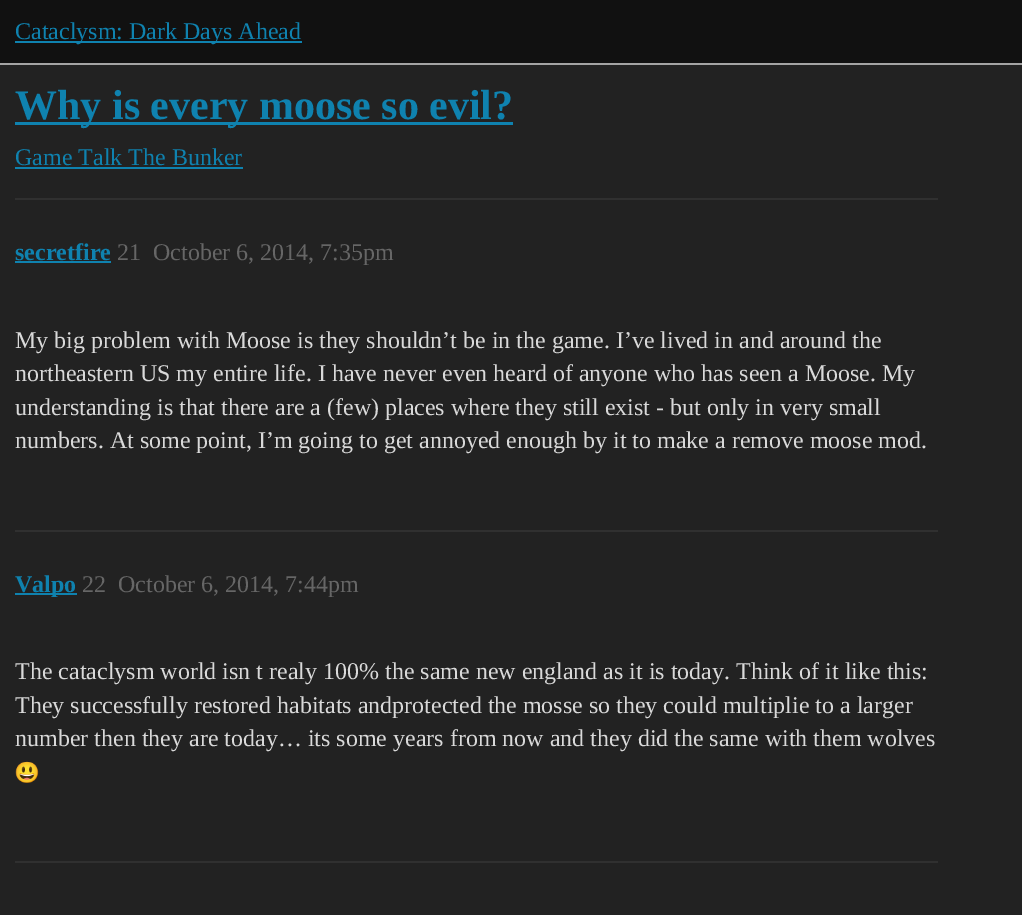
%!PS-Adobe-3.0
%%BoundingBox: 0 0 1022 915
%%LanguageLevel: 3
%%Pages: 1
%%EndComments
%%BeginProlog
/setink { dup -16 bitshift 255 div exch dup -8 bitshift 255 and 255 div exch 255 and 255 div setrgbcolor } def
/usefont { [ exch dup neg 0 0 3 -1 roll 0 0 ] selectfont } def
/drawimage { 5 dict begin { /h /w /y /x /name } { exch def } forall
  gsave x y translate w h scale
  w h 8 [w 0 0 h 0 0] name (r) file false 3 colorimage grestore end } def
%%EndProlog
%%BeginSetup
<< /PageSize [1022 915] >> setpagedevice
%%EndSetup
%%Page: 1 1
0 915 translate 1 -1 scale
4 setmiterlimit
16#222222 setink
0 0 1022 915 rectfill
[
    [0 0 1022 63 16#111111]
    [0 63 1022 2 16#A4A4A4]
    [15 41 287 2 16#0F82AF]
] { aload pop setink rectfill } forall
/LiberationSerif-Regular 24 usefont
15 39 moveto (Cataclysm: Dark Days Ahead) show
15 122 498 3 rectfill
/LiberationSerif-Bold 42 usefont
15 119 moveto (Why is every moose so evil?) show
/LiberationSerif-Regular 24 usefont
15 165 moveto (Game Talk The Bunker) show
15 167 228 2 rectfill
16#303030 setink
15 198 923 2 rectfill
/LiberationSerif-Bold 24 usefont
16#0F82AF setink
15 260 moveto (secretfire) show
15 261 96 2 rectfill
/LiberationSerif-Regular 24 usefont
16#666666 setink
117 260 moveto (21) show
153 260 moveto (October 6, 2014, 7:35pm) show
16#D9D9D9 setink
[
    [(My big problem with Moose is they shouldn’t be in the game. I’ve lived in and around the) 15 348]
    [(northeastern US my entire life. I have never even heard of anyone who has seen a Moose. My) 15 381]
    [(understanding is that there are a \(few\) places where they still exist - but only in very small) 15 415]
    [(numbers. At some point, I’m going to get annoyed enough by it to make a remove moose mod.) 15 448]
] { aload pop moveto show } forall
16#303030 setink
15 530 923 2 rectfill
16#0F82AF setink
15 593 62 2 rectfill
/LiberationSerif-Bold 24 usefont
15 592 moveto (Valpo) show
/LiberationSerif-Regular 24 usefont
16#666666 setink
82 592 moveto (22) show
118 592 moveto (October 6, 2014, 7:44pm) show
16#D9D9D9 setink
[
    [(The cataclysm world isn t realy 100% the same new england as it is today. Think of it like this:) 15 679]
    [(They successfully restored habitats andprotected the mosse so they could multiplie to a larger) 15 713]
    [(number then they are today… its some years from now and they did the same with them wolves) 15 746]
] { aload pop moveto show } forall
(img1.raw) 15 761 24 22 drawimage
16#303030 setink
15 861 923 2 rectfill
showpage
%%EOF
